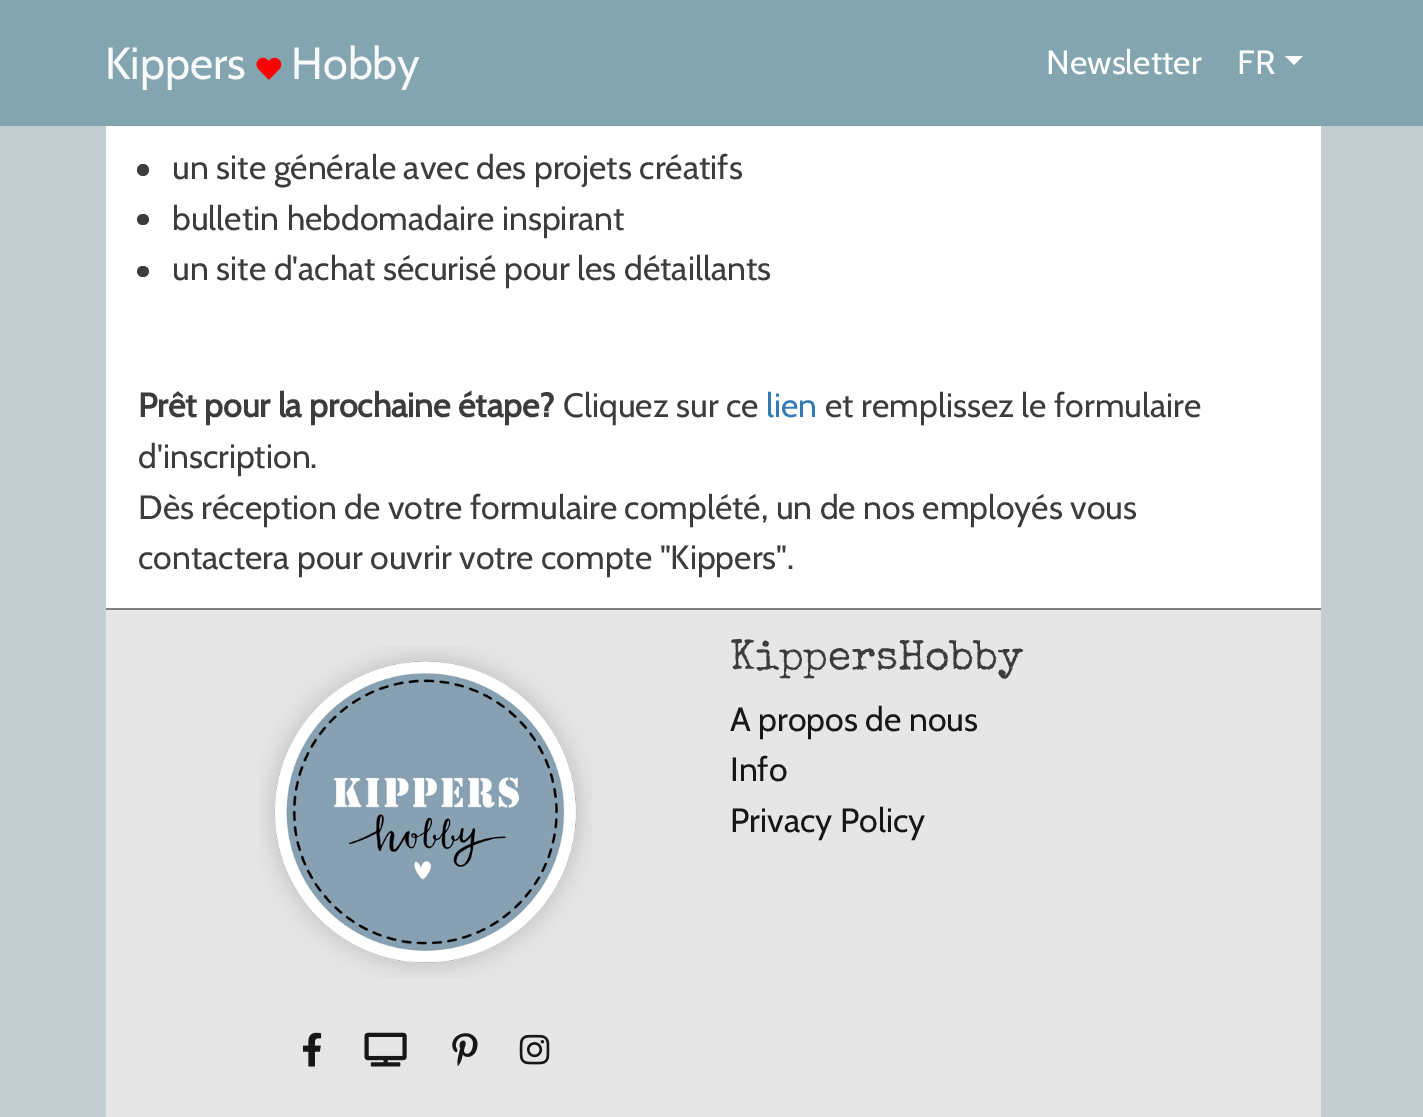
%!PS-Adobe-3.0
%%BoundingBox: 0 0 1423 1117
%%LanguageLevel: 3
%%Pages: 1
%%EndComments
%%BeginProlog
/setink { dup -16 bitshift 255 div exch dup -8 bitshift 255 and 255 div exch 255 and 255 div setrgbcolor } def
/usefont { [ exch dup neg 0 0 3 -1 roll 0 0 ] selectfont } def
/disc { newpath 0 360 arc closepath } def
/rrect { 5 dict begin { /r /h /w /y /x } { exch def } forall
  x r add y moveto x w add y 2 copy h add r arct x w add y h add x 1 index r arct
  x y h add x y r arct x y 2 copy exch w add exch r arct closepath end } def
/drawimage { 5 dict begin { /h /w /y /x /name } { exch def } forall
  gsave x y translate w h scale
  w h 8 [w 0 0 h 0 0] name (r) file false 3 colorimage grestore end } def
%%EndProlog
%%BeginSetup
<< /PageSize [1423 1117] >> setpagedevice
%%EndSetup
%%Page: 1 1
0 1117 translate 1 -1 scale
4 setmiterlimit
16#C4CDD2 setink
0 0 1423 1117 rectfill
16#FFFFFF setink
106 126 1215 482 rectfill
16#83A5B0 setink
0 0 1423 126 rectfill
/Cabin-Regular 45 usefont
16#F8F9FA setink
105 79 moveto (Kippers) show
(img1.raw) 256 57 26 23 drawimage
291 79 moveto (Hobby) show
/Cabin-Regular 33.75 usefont
16#FFFFFF setink
1046 74 moveto (Newsletter) show
1237 74 moveto (FR) show
1285 56 moveto 1303 56 lineto 1294 65 lineto closepath fill
16#3C3C3C setink
143 170 6 disc fill
172 179 moveto (un site générale avec des projets créatifs) show
137 214 12 11 5.5 rrect fill
172 230 moveto (bulletin hebdomadaire inspirant) show
137 266 12 11 5.5 rrect fill
172 280 moveto (un site d'achat sécurisé pour les détaillants) show
/Cabin-Bold 33.75 usefont
138 417 moveto (Prêt pour la prochaine étape?) show
/Cabin-Regular 33.75 usefont
563 417 moveto (Cliquez sur ce) show
16#337AB7 setink
766 417 moveto (lien) show
16#3C3C3C setink
[
    [(et remplissez le formulaire) 825 417]
    [(d'inscription.) 138 468]
    [(Dès réception de votre formulaire complété, un de nos employés vous) 138 519]
    [(contactera pour ouvrir votre compte "Kippers".) 138 569]
] { aload pop moveto show } forall
16#E6E6E6 setink
106 610 1215 507 rectfill
16#808080 setink
106 608 1215 2 rectfill
(img2.raw) 259 646 333 332 drawimage
(img3.raw) 303 1032 19 35 drawimage
(img4.raw) 364 1032 43 35 drawimage
(img5.raw) 452 1033 26 33 drawimage
(img6.raw) 519 1034 31 31 drawimage
/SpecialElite-Regular 42.25 usefont
16#3C3C3C setink
730 669 moveto (KippersHobby) show
/Cabin-Regular 33.75 usefont
16#171717 setink
[
    [(A propos de nous) 730 731]
    [(Info) 730 781]
    [(Privacy Policy) 730 832]
] { aload pop moveto show } forall
showpage
%%EOF
